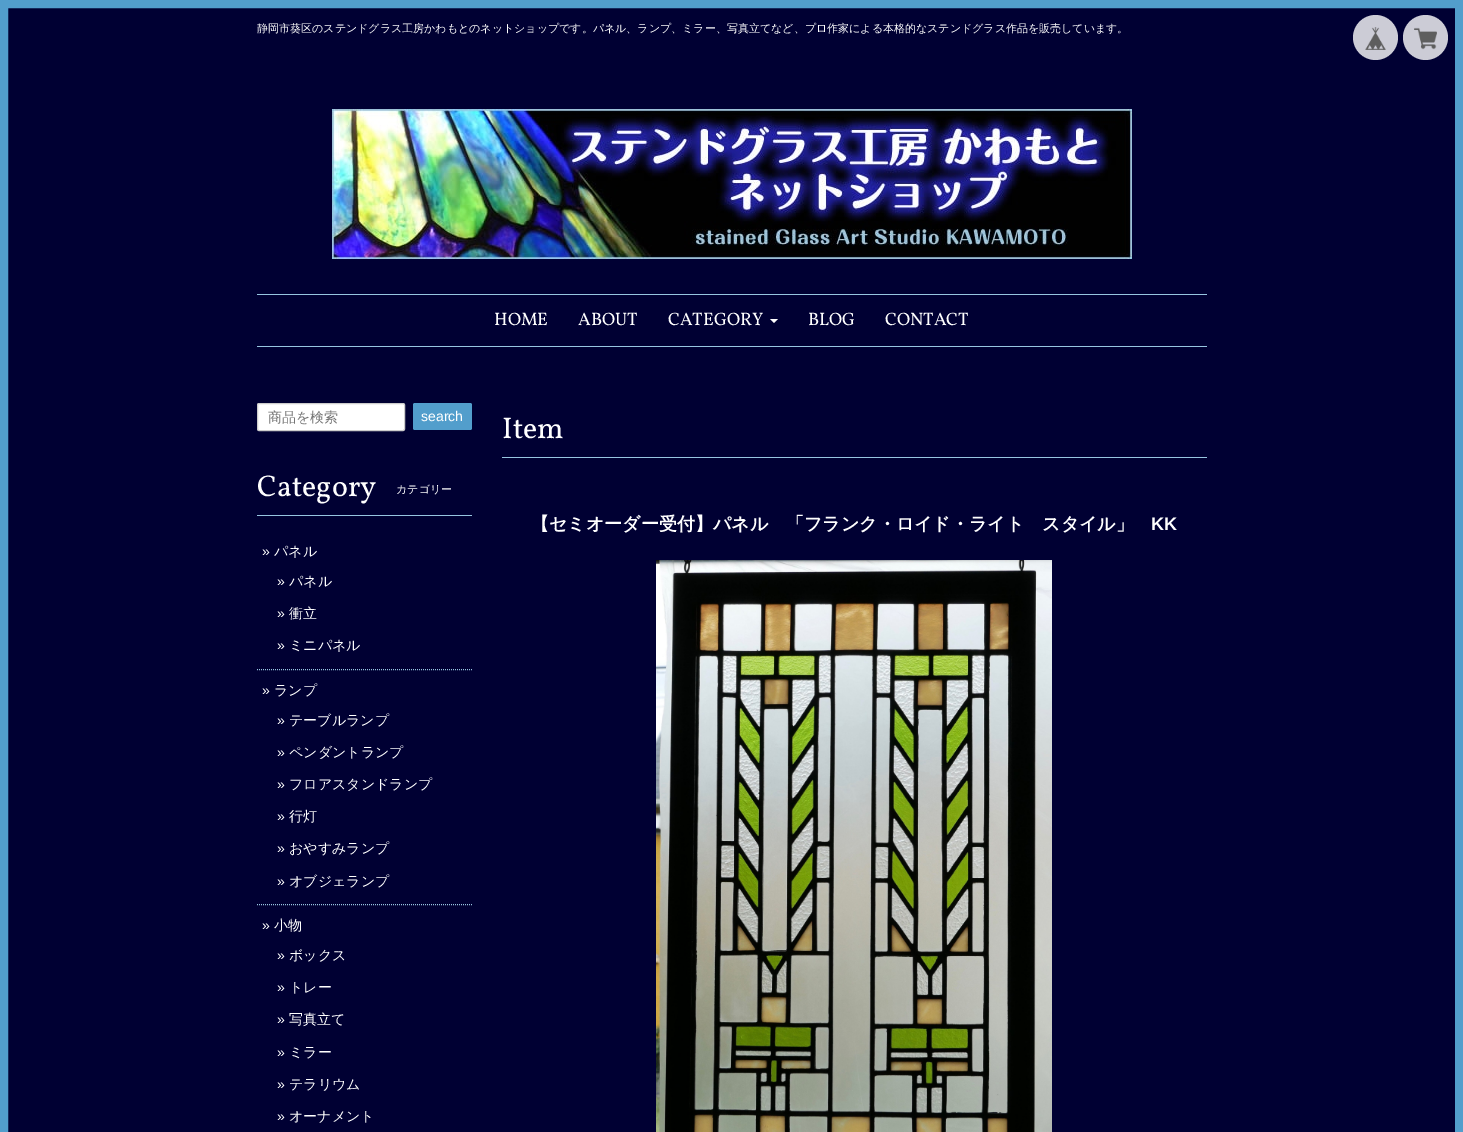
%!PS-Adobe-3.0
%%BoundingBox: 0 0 1463 1132
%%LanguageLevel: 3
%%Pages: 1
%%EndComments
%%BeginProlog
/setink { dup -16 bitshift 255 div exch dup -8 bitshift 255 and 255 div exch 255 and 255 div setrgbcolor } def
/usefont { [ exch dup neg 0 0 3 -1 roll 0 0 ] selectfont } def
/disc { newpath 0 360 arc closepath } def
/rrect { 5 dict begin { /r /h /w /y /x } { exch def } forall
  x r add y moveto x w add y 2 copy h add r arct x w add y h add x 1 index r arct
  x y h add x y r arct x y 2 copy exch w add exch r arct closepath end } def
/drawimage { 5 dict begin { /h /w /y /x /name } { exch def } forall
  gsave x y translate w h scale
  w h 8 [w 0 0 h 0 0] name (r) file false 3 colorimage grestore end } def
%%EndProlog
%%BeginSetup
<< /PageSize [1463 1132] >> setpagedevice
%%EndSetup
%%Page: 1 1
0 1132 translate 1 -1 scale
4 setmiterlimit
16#000033 setink
0 0 1463 1132 rectfill
16#529ECC setink
8 setlinewidth
4 4 1455 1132 rectstroke
/WenQuanYiZenHei-Medium 11 usefont
16#FFFFFF setink
257 32 moveto (静岡市葵区のステンドグラス工房かわもとのネットショップです。パネル、ランプ、ミラー、写真立てなど、プロ作家による本格的なステンドグラス作品を販売しています。) show
(img1.raw) 332 109 800 150 drawimage
16#97C5E0 setink
257 294 950 1 rectfill
257 346 950 1 rectfill
/Vollkorn-Regular 18 usefont
16#FFFFFF setink
[
    [(HOME) 494 325]
    [(ABOUT) 578 325]
    [(CATEGORY) 668 325]
] { aload pop moveto show } forall
770 319 moveto 778 319 lineto 774 323 lineto closepath fill
808 325 moveto (BLOG) show
885 325 moveto (CONTACT) show
16#CCCCD6 setink
1375.5 37.5 22.5 disc fill
(img2.raw) 1365 27 21 23 drawimage
1425.5 37.5 22.5 disc fill
(img3.raw) 1414 27 23 23 drawimage
16#FFFFFF setink
257.5 403.5 147 27 1.5 rrect gsave fill grestore
16#CCCCCC setink
1 setlinewidth
stroke
/WenQuanYiZenHei-Medium 14 usefont
16#757575 setink
268 422 moveto (商品を検索) show
16#529ECC setink
413 403 59 27 2 rrect fill
/LiberationSans-Regular 14 usefont
16#FFFFFF setink
421 421 moveto (search) show
16#97C5E0 setink
257 515 215 1 rectfill
/Vollkorn-Regular 30 usefont
16#FFFFFF setink
257 496 moveto (Category) show
/WenQuanYiZenHei-Medium 11 usefont
396 493 moveto (カテゴリー) show
16#97C5E0 setink
[1 1] 0 setdash
257 669.5 moveto 472 669.5 lineto stroke
/LiberationSans-Regular 14 usefont
16#FFFFFF setink
262 556 moveto (») show
/WenQuanYiZenHei-Medium 14 usefont
274 556 moveto (パネル) show
/LiberationSans-Regular 14 usefont
277 586 moveto (») show
/WenQuanYiZenHei-Medium 14 usefont
289 586 moveto (パネル) show
/LiberationSans-Regular 14 usefont
277 618 moveto (») show
/WenQuanYiZenHei-Medium 14 usefont
289 618 moveto (衝立) show
/LiberationSans-Regular 14 usefont
277 650 moveto (») show
/WenQuanYiZenHei-Medium 14 usefont
289 650 moveto (ミニパネル) show
16#97C5E0 setink
257 904.5 moveto 472 904.5 lineto stroke
/LiberationSans-Regular 14 usefont
16#FFFFFF setink
262 695 moveto (») show
/WenQuanYiZenHei-Medium 14 usefont
274 695 moveto (ランプ) show
/LiberationSans-Regular 14 usefont
277 725 moveto (») show
/WenQuanYiZenHei-Medium 14 usefont
289 725 moveto (テーブルランプ) show
/LiberationSans-Regular 14 usefont
277 757 moveto (») show
/WenQuanYiZenHei-Medium 14 usefont
289 757 moveto (ペンダントランプ) show
/LiberationSans-Regular 14 usefont
277 789 moveto (») show
/WenQuanYiZenHei-Medium 14 usefont
289 789 moveto (フロアスタンドランプ) show
/LiberationSans-Regular 14 usefont
277 821 moveto (») show
/WenQuanYiZenHei-Medium 14 usefont
289 821 moveto (行灯) show
/LiberationSans-Regular 14 usefont
277 853 moveto (») show
/WenQuanYiZenHei-Medium 14 usefont
289 853 moveto (おやすみランプ) show
/LiberationSans-Regular 14 usefont
277 886 moveto (») show
/WenQuanYiZenHei-Medium 14 usefont
289 886 moveto (オブジェランプ) show
/LiberationSans-Regular 14 usefont
262 930 moveto (») show
/WenQuanYiZenHei-Medium 14 usefont
274 930 moveto (小物) show
/LiberationSans-Regular 14 usefont
277 960 moveto (») show
/WenQuanYiZenHei-Medium 14 usefont
289 960 moveto (ボックス) show
/LiberationSans-Regular 14 usefont
277 992 moveto (») show
/WenQuanYiZenHei-Medium 14 usefont
289 992 moveto (トレー) show
/LiberationSans-Regular 14 usefont
277 1024 moveto (») show
/WenQuanYiZenHei-Medium 14 usefont
289 1024 moveto (写真立て) show
/LiberationSans-Regular 14 usefont
277 1057 moveto (») show
/WenQuanYiZenHei-Medium 14 usefont
289 1057 moveto (ミラー) show
/LiberationSans-Regular 14 usefont
277 1089 moveto (») show
/WenQuanYiZenHei-Medium 14 usefont
289 1089 moveto (テラリウム) show
/LiberationSans-Regular 14 usefont
277 1121 moveto (») show
/WenQuanYiZenHei-Medium 14 usefont
289 1121 moveto (オーナメント) show
16#97C5E0 setink
502 457 705 1 rectfill
/Vollkorn-Regular 30 usefont
16#FFFFFF setink
502 438 moveto (Item) show
/WenQuanYiZenHei-Bold 18 usefont
531 530 moveto (【セミオーダー受付】パネル　「フランク・ロイド・ライト　スタイル」) show
/LiberationSans-Bold 18 usefont
1151 530 moveto (KK) show
(img4.raw) 656 560 396 572 drawimage
showpage
%%EOF
